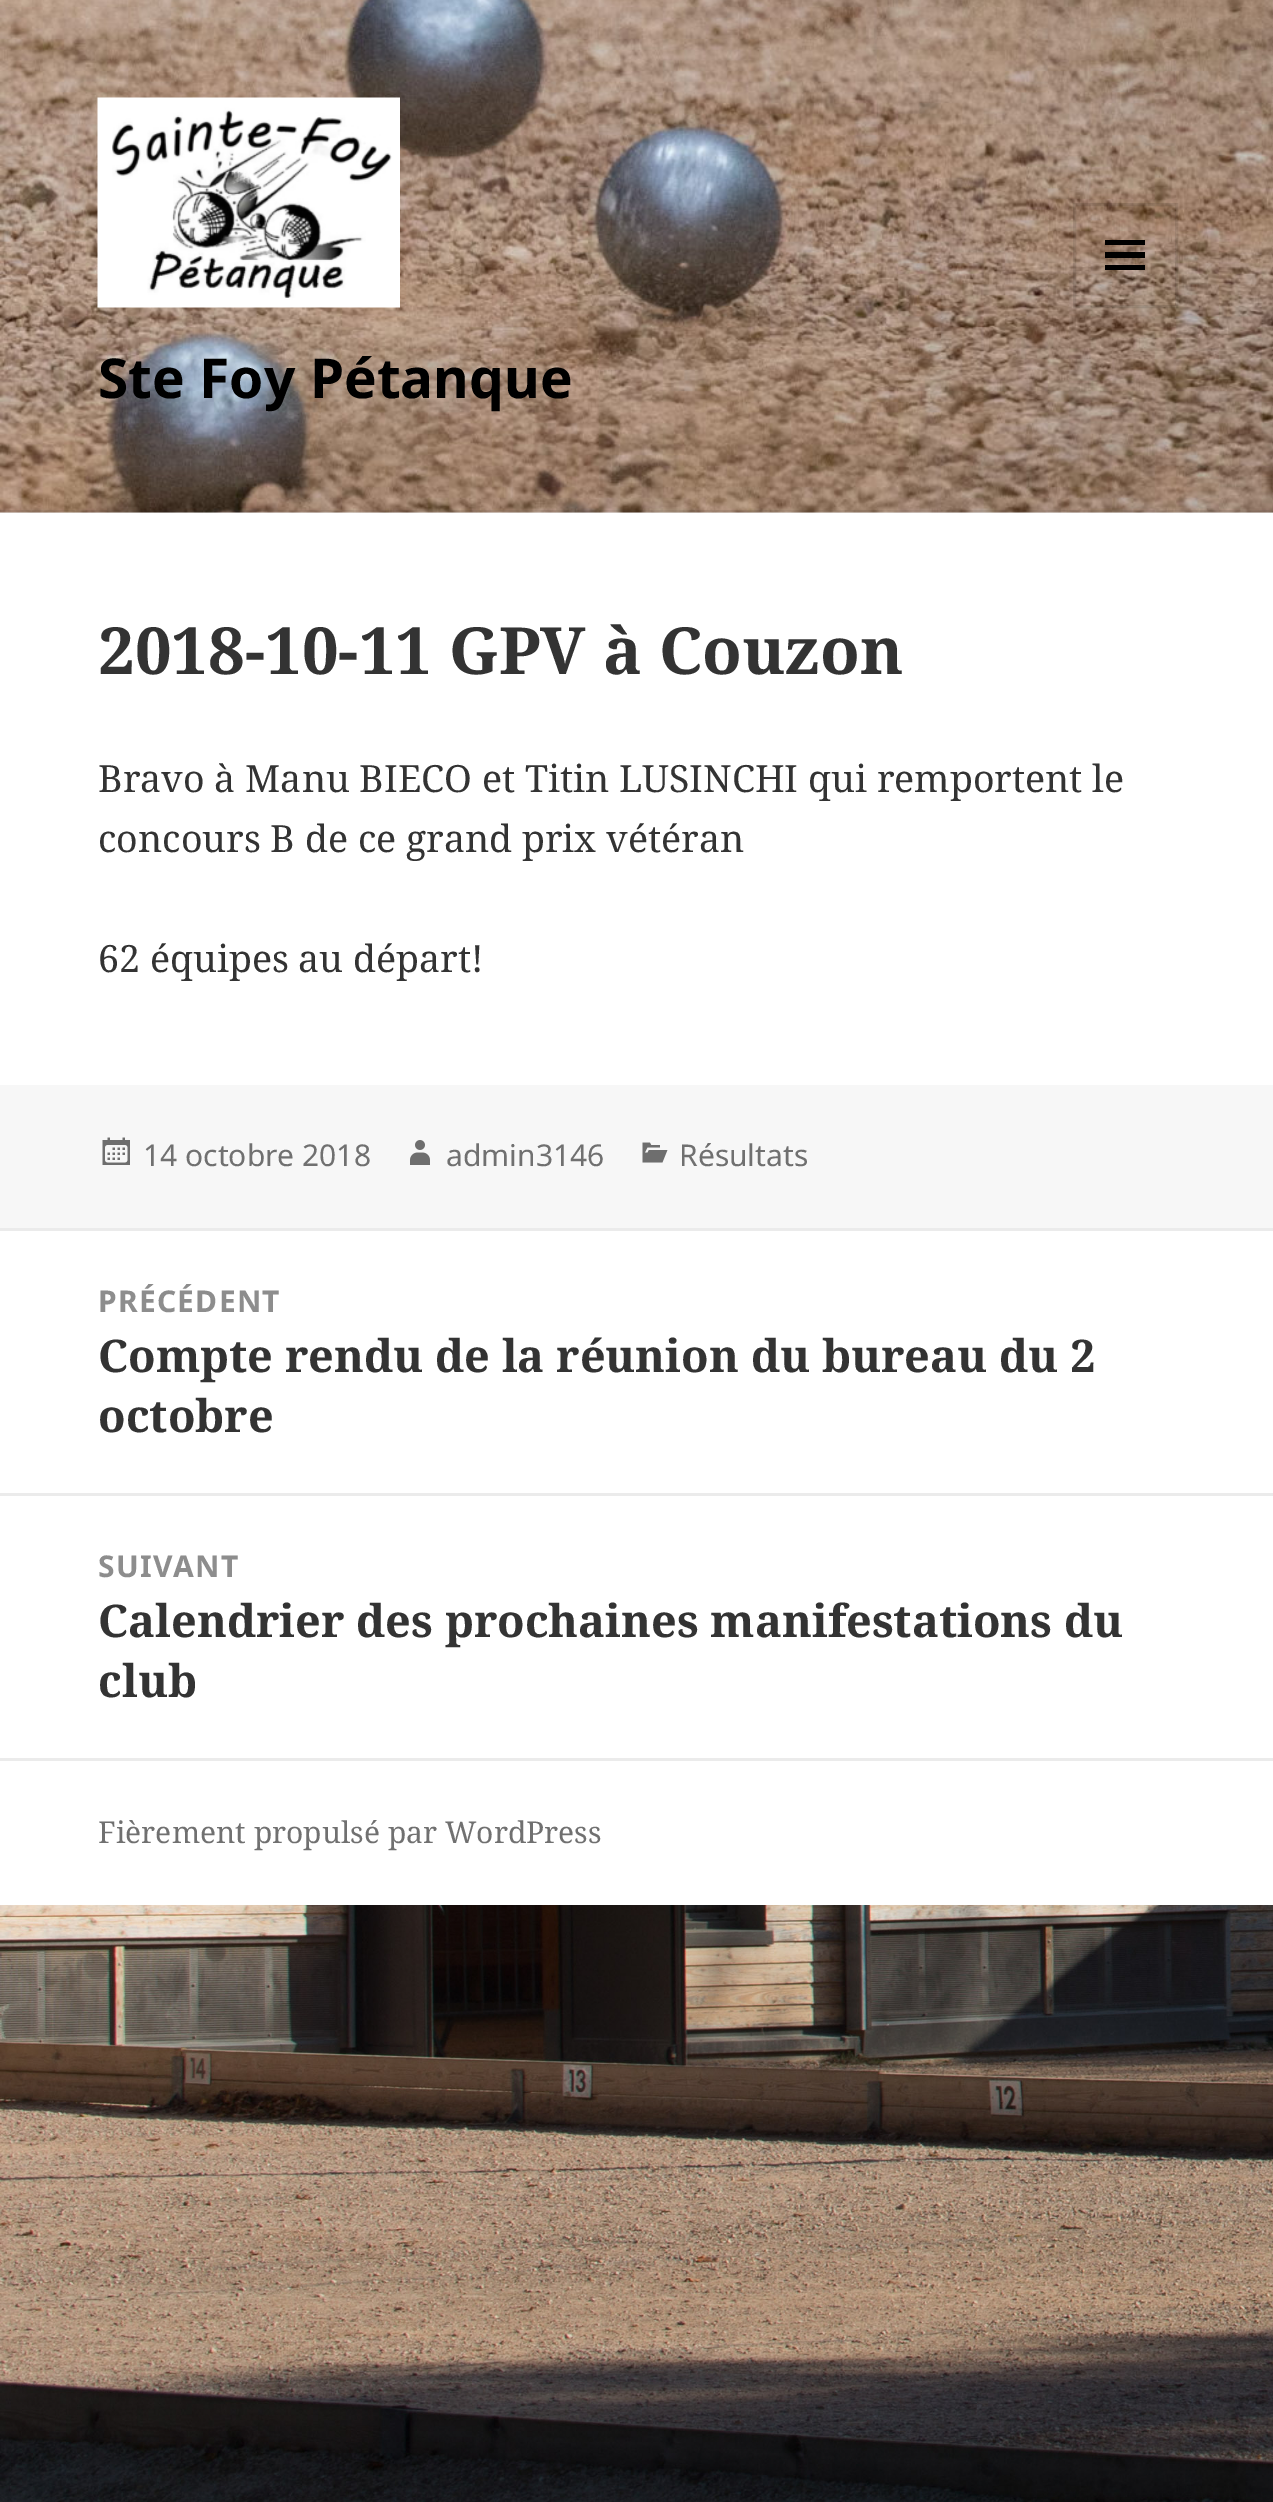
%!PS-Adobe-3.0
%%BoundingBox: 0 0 1273 2502
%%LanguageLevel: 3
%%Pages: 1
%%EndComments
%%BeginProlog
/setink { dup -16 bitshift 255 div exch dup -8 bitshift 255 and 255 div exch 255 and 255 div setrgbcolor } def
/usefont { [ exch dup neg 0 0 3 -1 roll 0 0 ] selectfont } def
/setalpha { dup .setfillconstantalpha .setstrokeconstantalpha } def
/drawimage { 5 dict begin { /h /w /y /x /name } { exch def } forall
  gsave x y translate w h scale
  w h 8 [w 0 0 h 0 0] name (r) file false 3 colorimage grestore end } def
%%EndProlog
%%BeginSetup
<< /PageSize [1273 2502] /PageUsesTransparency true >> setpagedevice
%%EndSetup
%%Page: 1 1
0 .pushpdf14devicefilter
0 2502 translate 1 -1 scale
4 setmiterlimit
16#FFFFFF setink
0 0 1273 2502 rectfill
(img1.raw) 0 1905 1273 597 drawimage
(img2.raw) 0 0 1273 513 drawimage
0.1 setalpha
16#333333 setink
0 510 1273 3 rectfill
1 setalpha
(img3.raw) 97 97 303 211 drawimage
0.1 setalpha
16#000000 setink
3 setlinewidth
1074.5 204.5 102 102 rectstroke
1 setalpha
1105 270 moveto 1105 265 lineto 1145 265 lineto 1145 270 lineto closepath 1105 240 moveto 1145 240 lineto 1145 245 lineto 1105 245 lineto closepath 1105 258 moveto 1105 252 lineto 1145 252 lineto 1145 258 lineto closepath fill
/NotoSans-Bold 55 usefont
98 398 moveto (Ste Foy Pétanque) show
/NotoSerif-Bold 65 usefont
16#333333 setink
98 674 moveto (2018-10-11 GPV à Couzon) show
/NotoSerif-Regular 37.5 usefont
[
    [(Bravo à Manu BIECO et Titin LUSINCHI qui remportent le) 98 792]
    [(concours B de ce grand prix vétéran) 98 852]
    [(62 équipes au départ!) 98 972]
] { aload pop moveto show } forall
16#F7F7F7 setink
0 1085 1273 143 rectfill
(img4.raw) 102 1137 28 28 drawimage
/NotoSans-Regular 30 usefont
16#707070 setink
143 1166 moveto (14 octobre 2018) show
(img5.raw) 410 1140 20 25 drawimage
446 1166 moveto (admin3146) show
(img6.raw) 642 1142 26 21 drawimage
679 1166 moveto (Résultats) show
16#EBEBEB setink
0 1228 1273 3 rectfill
/NotoSans-Bold 30 usefont
16#8D8D8D setink
98 1312 moveto 1.25 0 (PRÉCÉDENT) ashow
/NotoSerif-Bold 45 usefont
16#333333 setink
98 1372 moveto (Compte rendu de la réunion du bureau du 2) show
98 1432 moveto (octobre) show
16#EBEBEB setink
0 1493 1273 3 rectfill
/NotoSans-Bold 30 usefont
16#8D8D8D setink
98 1577 moveto 1.25 0 (SUIVANT) ashow
/NotoSerif-Bold 45 usefont
16#333333 setink
98 1637 moveto (Calendrier des prochaines manifestations du) show
98 1697 moveto (club) show
16#EBEBEB setink
0 1758 1273 3 rectfill
/NotoSerif-Regular 30 usefont
16#707070 setink
98 1843 moveto (Fièrement propulsé par WordPress) show
.poppdf14devicefilter showpage
%%EOF
